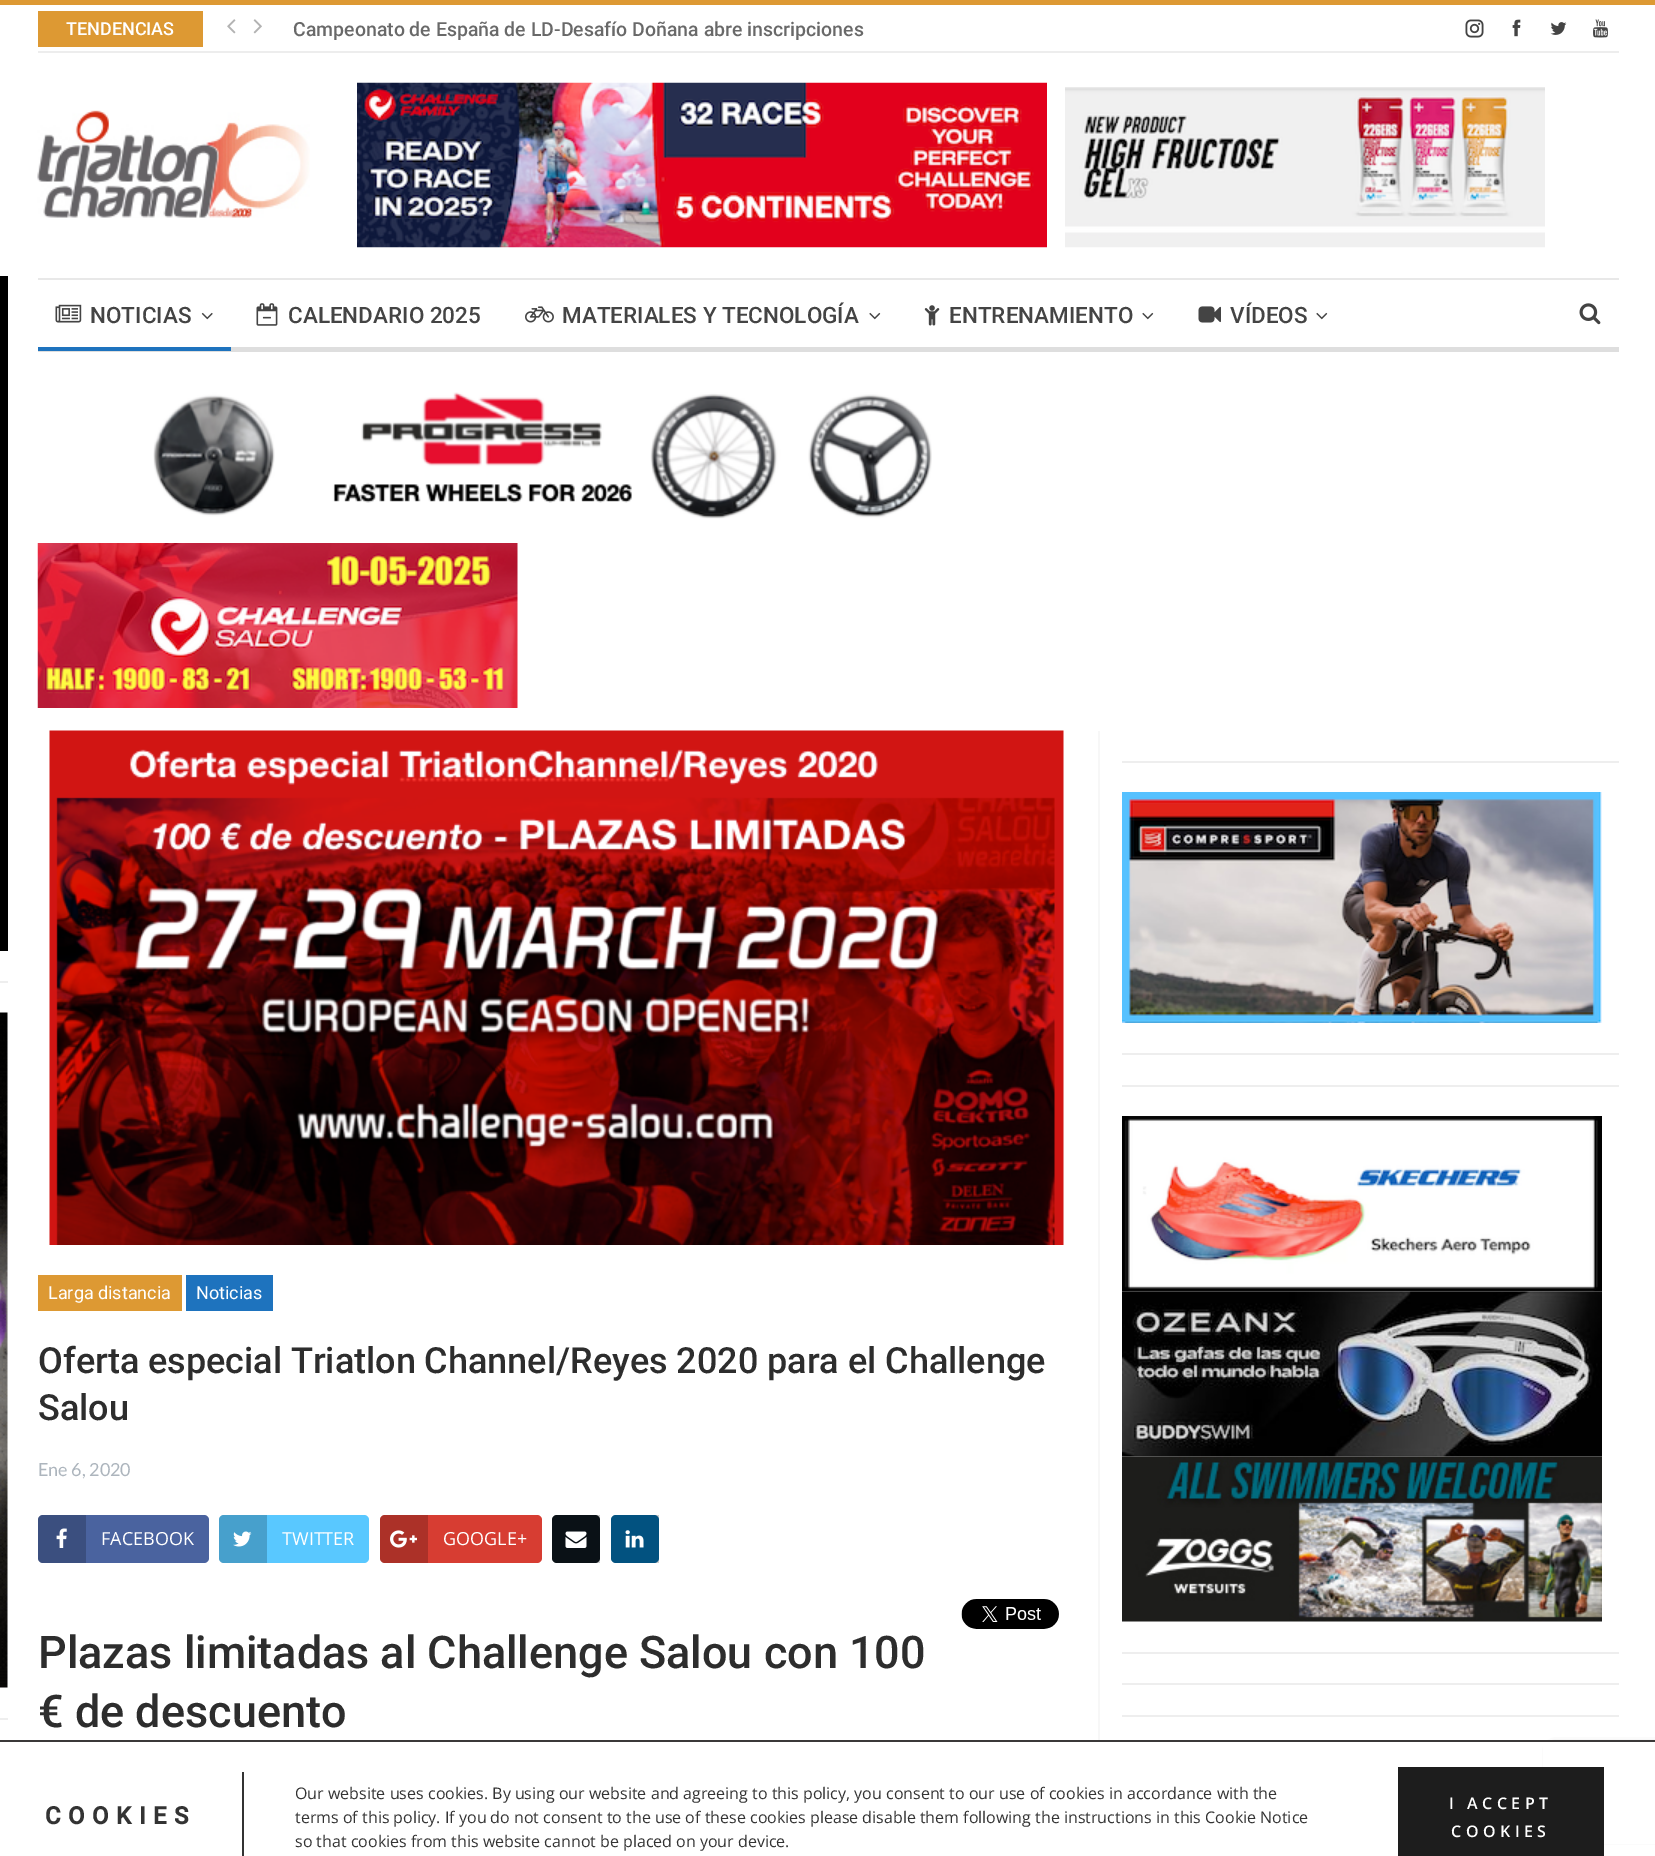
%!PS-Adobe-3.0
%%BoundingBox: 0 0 1655 1856
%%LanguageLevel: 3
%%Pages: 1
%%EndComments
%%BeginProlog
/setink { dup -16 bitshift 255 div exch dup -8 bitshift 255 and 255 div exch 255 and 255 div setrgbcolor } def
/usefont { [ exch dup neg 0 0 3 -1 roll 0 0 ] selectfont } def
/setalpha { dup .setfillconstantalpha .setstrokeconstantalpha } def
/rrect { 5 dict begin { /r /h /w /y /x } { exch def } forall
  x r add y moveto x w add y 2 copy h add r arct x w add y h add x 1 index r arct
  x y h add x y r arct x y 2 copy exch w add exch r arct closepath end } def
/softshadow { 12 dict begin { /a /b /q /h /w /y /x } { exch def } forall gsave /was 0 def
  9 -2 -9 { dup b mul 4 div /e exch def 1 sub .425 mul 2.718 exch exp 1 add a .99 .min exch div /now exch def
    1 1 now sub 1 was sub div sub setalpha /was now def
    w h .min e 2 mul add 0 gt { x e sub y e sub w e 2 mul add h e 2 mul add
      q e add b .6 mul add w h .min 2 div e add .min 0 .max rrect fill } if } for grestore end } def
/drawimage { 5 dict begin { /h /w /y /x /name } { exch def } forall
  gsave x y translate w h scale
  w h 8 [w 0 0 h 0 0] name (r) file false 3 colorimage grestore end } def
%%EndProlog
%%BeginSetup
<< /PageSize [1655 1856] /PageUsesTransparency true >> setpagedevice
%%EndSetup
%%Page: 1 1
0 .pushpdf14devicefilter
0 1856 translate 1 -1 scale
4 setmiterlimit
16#FFFFFF setink
0 0 1655 1856 rectfill
[
    [0 0 1655 5 16#DD9933]
    [38 51 1581 2 16#EDEDED]
    [38 11 165 36 16#DD9933]
] { aload pop setink rectfill } forall
/Roboto-Medium 18 usefont
16#FFFFFF setink
66 35 moveto (TENDENCIAS) show
(img1.raw) 227 19 9 15 drawimage
(img2.raw) 253 19 9 15 drawimage
/Roboto-Medium 19.5 usefont
16#696969 setink
293 36 moveto (Campeonato de España de LD-Desafío Doñana abre inscripciones) show
(img3.raw) 1465 19 19 19 drawimage
(img4.raw) 1512 19 9 18 drawimage
(img5.raw) 1550 22 17 13 drawimage
(img6.raw) 1593 19 15 19 drawimage
(img7.raw) 37 110 273 108 drawimage
(img8.raw) 357 82 690 166 drawimage
(img9.raw) 1065 87 480 161 drawimage
16#E8E8E8 setink
38 278 1581 2 rectfill
16#DEDEDE setink
38 347 1581 5 rectfill
(img10.raw) 55 304 27 19 drawimage
/Roboto-Medium 22.5 usefont
16#444444 setink
90 323 moveto (NOTICIAS) show
(img11.raw) 201 312 12 8 drawimage
16#1E73BE setink
38 347 193 4 rectfill
(img12.raw) 256 303 22 23 drawimage
16#444444 setink
288 323 moveto (CALENDARIO 2025) show
(img13.raw) 525 306 29 17 drawimage
562 323 moveto (MATERIALES Y TECNOLOGÍA) show
(img14.raw) 869 312 12 8 drawimage
(img15.raw) 924 305 16 21 drawimage
949 323 moveto (ENTRENAMIENTO) show
(img14.raw) 1142 312 12 8 drawimage
(img16.raw) 1198 306 23 17 drawimage
1230 323 moveto (VÍDEOS) show
(img14.raw) 1316 312 12 8 drawimage
(img17.raw) 1579 303 22 22 drawimage
16#000000 setink
0 276 8 675 rectfill
16#EEEEEE setink
0 981 8 2 rectfill
(img18.raw) 0 1012 8 676 drawimage
0 1718 8 2 rectfill
(img19.raw) 153 392 779 127 drawimage
(img20.raw) 37 543 481 165 drawimage
(img21.raw) 49 730 1015 515 drawimage
16#DD9933 setink
38 1275 144 36 rectfill
/Roboto-Regular 18 usefont
16#FFFFFF setink
48 1299 moveto (Larga distancia) show
16#1E73BE setink
186 1275 87 36 rectfill
16#FFFFFF setink
196 1299 moveto (Noticias) show
/Roboto-Medium 36 usefont
16#2D2D2D setink
38 1373 moveto (Oferta especial Triatlon Channel/Reyes 2020 para el Challenge) show
38 1420 moveto (Salou) show
/Lato-Regular 18 usefont
16#ADB5BD setink
38 1476 moveto (Ene 6, 2020) show
16#4A639F setink
38 1515 171 48 5 rrect fill
0.2 setalpha
16#000000 setink
43 1515 moveto 86 1515 lineto 86 1563 lineto 43 1563 lineto 40 1563 38 1561 38 1558 curveto 38 1520 lineto 38 1517 40 1515 43 1515 curveto closepath fill
1 setalpha
(img22.raw) 56 1528 11 20 drawimage
/OpenSans-Regular 18 usefont
16#FFFFFF setink
101 1545 moveto (FACEBOOK) show
16#59C8FF setink
219 1515 150 48 5 rrect fill
0.2 setalpha
16#000000 setink
224 1515 moveto 267 1515 lineto 267 1563 lineto 224 1563 lineto 221 1563 219 1561 219 1558 curveto 219 1520 lineto 219 1517 221 1515 224 1515 curveto closepath fill
1 setalpha
(img23.raw) 233 1531 19 16 drawimage
16#FFFFFF setink
282 1545 moveto (TWITTER) show
16#D73D32 setink
380 1515 162 48 5 rrect fill
0.2 setalpha
16#000000 setink
385 1515 moveto 428 1515 lineto 428 1563 lineto 385 1563 lineto 382 1563 380 1561 380 1558 curveto 380 1520 lineto 380 1517 382 1515 385 1515 curveto closepath fill
1 setalpha
(img24.raw) 390 1530 27 18 drawimage
16#FFFFFF setink
443 1545 moveto (GOOGLE+) show
16#0C151C setink
552 1515 48 48 5 rrect fill
0.2 setalpha
16#000000 setink
557 1515 moveto 600 1515 lineto 600 1563 lineto 557 1563 lineto 554 1563 552 1561 552 1558 curveto 552 1520 lineto 552 1517 554 1515 557 1515 curveto closepath fill
1 setalpha
(img25.raw) 565 1531 22 17 drawimage
16#0266A0 setink
611 1515 48 48 5 rrect fill
0.2 setalpha
16#000000 setink
616 1515 moveto 659 1515 lineto 659 1563 lineto 616 1563 lineto 613 1563 611 1561 611 1558 curveto 611 1520 lineto 611 1517 613 1515 616 1515 curveto closepath fill
1 setalpha
(img26.raw) 625 1530 19 18 drawimage
(img27.raw) 961 1599 98 30 drawimage
/Roboto-Medium 45 usefont
16#2D2D2D setink
38 1668 moveto (Plazas limitadas al Challenge Salou con 100) show
38 1727 moveto (€ de descuento) show
16#F7F7F7 setink
1098 731 2 1009 rectfill
16#EEEEEE setink
1122 761 497 2 rectfill
(img28.raw) 1122 792 480 231 drawimage
1122 1053 497 2 rectfill
1122 1085 497 2 rectfill
(img29.raw) 1122 1116 480 176 drawimage
(img30.raw) 1122 1291 480 166 drawimage
(img31.raw) 1122 1456 480 166 drawimage
[
    [1122 1652 497 2 16#EEEEEE]
    [1122 1683 497 2 16#EEEEEE]
    [1122 1715 497 2 16#EEEEEE]
] { aload pop setink rectfill } forall
16#808080 setink
1551 1746 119 90 3 4 1 softshadow
[
    [1543 1742 112 102 16#FFFFFF]
    [0 1740 1655 2 16#3B3939]
    [242 1772 2 84 16#333333]
] { aload pop setink rectfill } forall
/Roboto-Bold 24 usefont
45 1824 moveto 7.5 0 (COOKIES) ashow
/OpenSans-Regular 16 usefont
[
    [(Our website uses cookies. By using our website and agreeing to this policy, you consent to our use of cookies in accordance with the) 295 1799]
    [(terms of this policy. If you do not consent to the use of these cookies please disable them following the instructions in this Cookie Notice) 295 1823]
    [(so that cookies from this website cannot be placed on your device.) 295 1847]
] { aload pop moveto show } forall
16#1D1D1D setink
1398 1767 206 89 rectfill
/OpenSans-SemiBold 16 usefont
16#FFFFFF setink
1449 1809 moveto 4.5 0 (I ACCEPT) ashow
1451 1837 moveto 4.5 0 (COOKIES) ashow
.poppdf14devicefilter showpage
%%EOF
